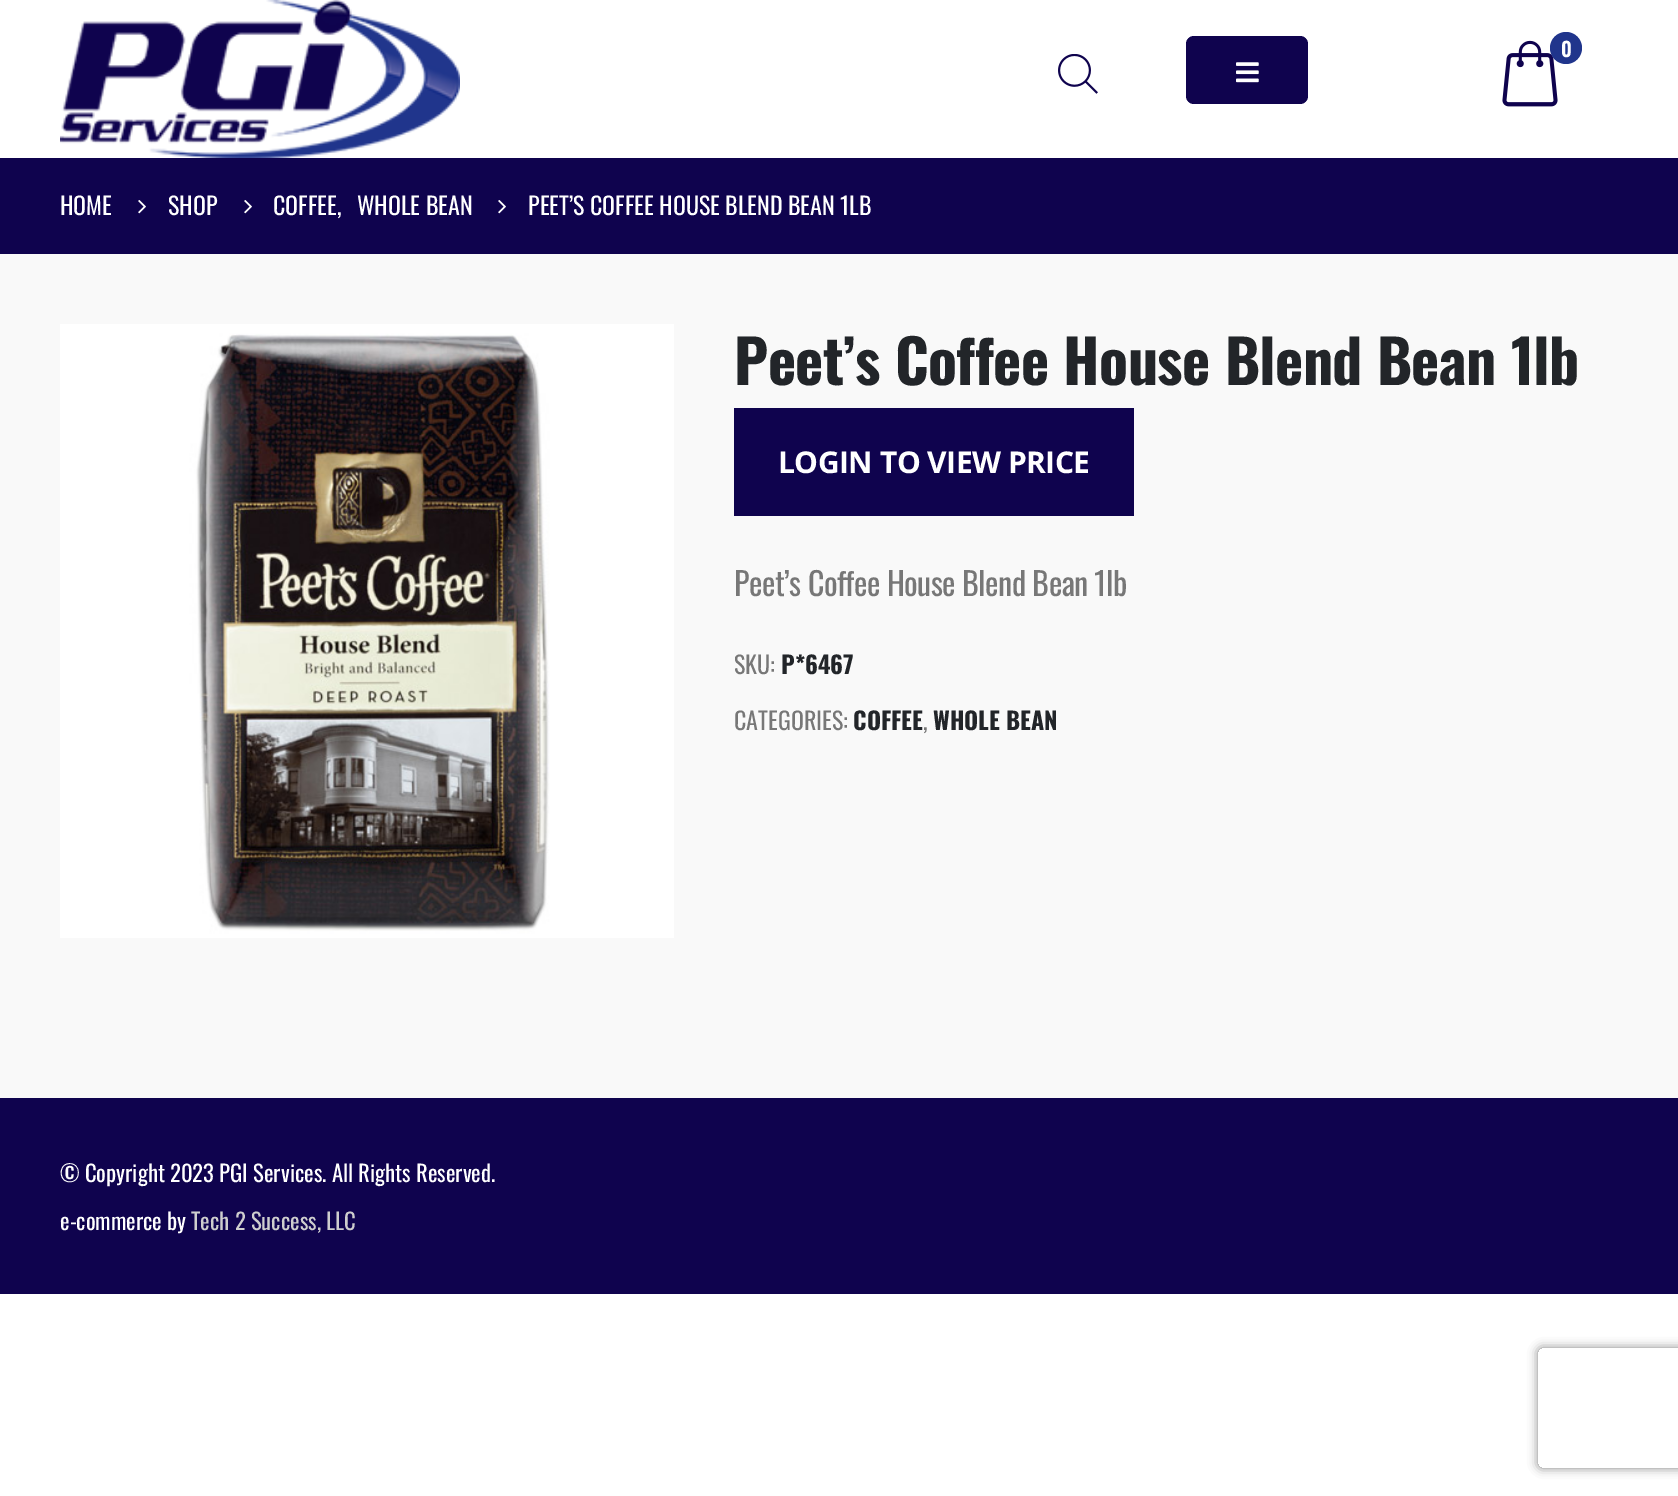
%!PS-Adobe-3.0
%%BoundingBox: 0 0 1678 1496
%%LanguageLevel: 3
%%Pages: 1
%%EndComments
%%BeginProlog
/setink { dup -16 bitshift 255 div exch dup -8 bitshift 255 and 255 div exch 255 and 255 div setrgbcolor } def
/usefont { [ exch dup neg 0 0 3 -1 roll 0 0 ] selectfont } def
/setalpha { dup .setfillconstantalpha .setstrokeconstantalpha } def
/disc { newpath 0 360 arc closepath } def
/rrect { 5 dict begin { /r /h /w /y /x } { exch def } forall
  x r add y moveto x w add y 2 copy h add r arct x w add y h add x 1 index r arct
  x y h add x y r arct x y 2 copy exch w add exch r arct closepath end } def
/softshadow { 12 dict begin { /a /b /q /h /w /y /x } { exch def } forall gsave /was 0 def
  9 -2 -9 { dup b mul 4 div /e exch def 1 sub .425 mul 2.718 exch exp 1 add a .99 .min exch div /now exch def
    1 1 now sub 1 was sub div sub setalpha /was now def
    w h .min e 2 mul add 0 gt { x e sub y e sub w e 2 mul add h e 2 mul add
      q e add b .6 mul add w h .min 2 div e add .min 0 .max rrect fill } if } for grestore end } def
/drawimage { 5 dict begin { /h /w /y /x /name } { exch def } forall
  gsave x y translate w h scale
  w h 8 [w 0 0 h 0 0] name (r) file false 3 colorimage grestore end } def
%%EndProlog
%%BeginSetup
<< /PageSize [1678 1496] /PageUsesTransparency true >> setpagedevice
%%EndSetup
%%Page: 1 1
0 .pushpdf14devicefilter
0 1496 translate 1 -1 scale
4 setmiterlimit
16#FFFFFF setink
0 0 1678 1496 rectfill
(img1.raw) 60 0 400 158 drawimage
(img2.raw) 1058 54 40 40 drawimage
16#0F034E setink
1186 36 122 68 8 rrect fill
(img3.raw) 1236 62 23 21 drawimage
(img4.raw) 1502 40 56 67 drawimage
16#20358C setink
1566 48 16 disc fill
/Oswald-SemiBold 20 usefont
16#FFFFFF setink
1561 57 moveto (0) show
16#0F034E setink
0 158 1678 96 rectfill
/Oswald-Regular 24 usefont
16#FFFFFF setink
60 215 moveto (HOME) show
(img5.raw) 138 200 8 14 drawimage
168 215 moveto (SHOP) show
(img5.raw) 244 200 8 14 drawimage
273 215 moveto (COFFEE,) show
357 215 moveto (WHOLE BEAN) show
(img5.raw) 498 200 8 14 drawimage
528 215 moveto (PEET’S COFFEE HOUSE BLEND BEAN 1LB) show
16#F9F9F9 setink
0 254 1678 844 rectfill
(img6.raw) 60 324 614 614 drawimage
/Oswald-Bold 60 usefont
16#222529 setink
734 385 moveto -0.6 0 (Peet’s Coffee House Blend Bean 1lb) ashow
16#0F034E setink
734 408 400 108 rectfill
/OpenSans-Bold 30 usefont
16#FFFFFF setink
778 473 moveto -0.5 0 (LOGIN TO VIEW PRICE) ashow
/Oswald-Regular 32 usefont
16#777777 setink
734 596 moveto -0.5 0 (Peet’s Coffee House Blend Bean 1lb) ashow
/Oswald-Regular 24 usefont
734 674 moveto (SKU:) show
/Oswald-Bold 24 usefont
16#222529 setink
781 674 moveto (P*6467) show
/Oswald-Regular 24 usefont
16#777777 setink
734 730 moveto (CATEGORIES:) show
/Oswald-Bold 24 usefont
16#222529 setink
853 730 moveto (COFFEE) show
/Oswald-Regular 24 usefont
16#777777 setink
923 730 moveto (,) show
/Oswald-Bold 24 usefont
16#222529 setink
933 730 moveto (WHOLE BEAN) show
16#0F034E setink
0 1098 1678 196 rectfill
/Oswald-Regular 22.7 usefont
16#FFFFFF setink
60 1182 moveto (© Copyright 2023 PGI Services. All Rights Reserved.) show
60 1230 moveto (e-commerce by) show
16#CECECE setink
191 1230 moveto (Tech 2 Success, LLC) show
gsave
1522 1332 moveto 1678 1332 lineto 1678 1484 lineto 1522 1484 lineto closepath 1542 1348 moveto 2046 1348 lineto 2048 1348 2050 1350 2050 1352 curveto 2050 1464 lineto 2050 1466 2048 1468 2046 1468 curveto 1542 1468 lineto 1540 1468 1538 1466 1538 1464 curveto 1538 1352 lineto 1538 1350 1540 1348 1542 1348 curveto closepath eoclip newpath
16#808080 setink
1538 1348 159 120 4 5 1 softshadow
grestore
.poppdf14devicefilter showpage
%%EOF
